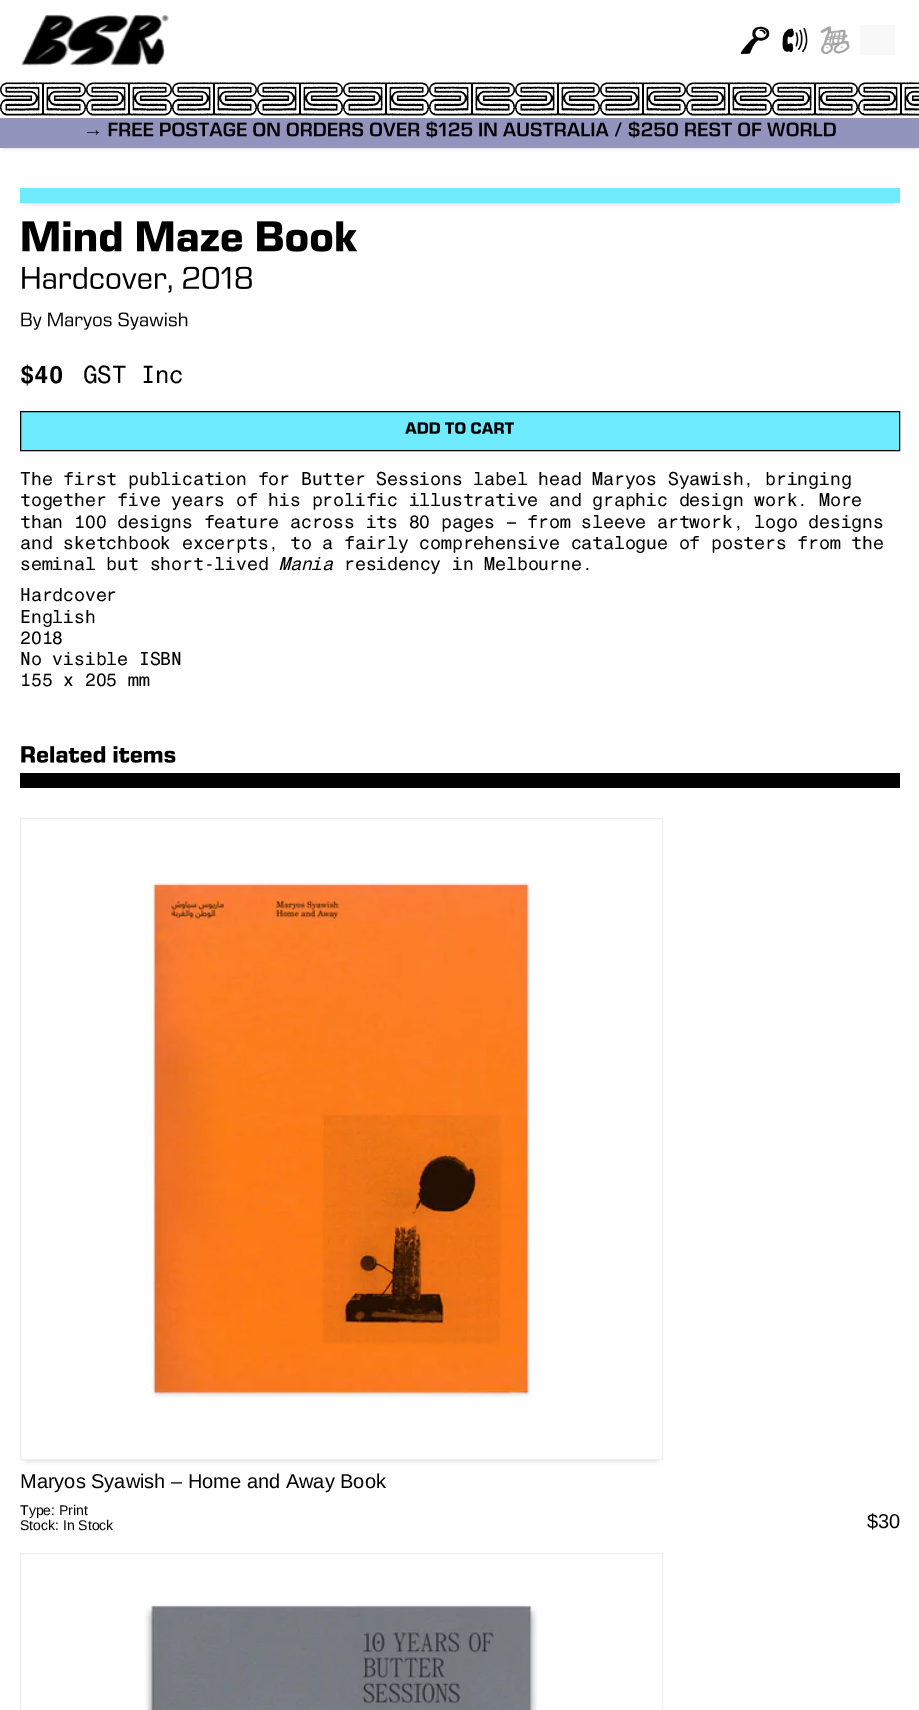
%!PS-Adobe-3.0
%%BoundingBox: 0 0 919 1710
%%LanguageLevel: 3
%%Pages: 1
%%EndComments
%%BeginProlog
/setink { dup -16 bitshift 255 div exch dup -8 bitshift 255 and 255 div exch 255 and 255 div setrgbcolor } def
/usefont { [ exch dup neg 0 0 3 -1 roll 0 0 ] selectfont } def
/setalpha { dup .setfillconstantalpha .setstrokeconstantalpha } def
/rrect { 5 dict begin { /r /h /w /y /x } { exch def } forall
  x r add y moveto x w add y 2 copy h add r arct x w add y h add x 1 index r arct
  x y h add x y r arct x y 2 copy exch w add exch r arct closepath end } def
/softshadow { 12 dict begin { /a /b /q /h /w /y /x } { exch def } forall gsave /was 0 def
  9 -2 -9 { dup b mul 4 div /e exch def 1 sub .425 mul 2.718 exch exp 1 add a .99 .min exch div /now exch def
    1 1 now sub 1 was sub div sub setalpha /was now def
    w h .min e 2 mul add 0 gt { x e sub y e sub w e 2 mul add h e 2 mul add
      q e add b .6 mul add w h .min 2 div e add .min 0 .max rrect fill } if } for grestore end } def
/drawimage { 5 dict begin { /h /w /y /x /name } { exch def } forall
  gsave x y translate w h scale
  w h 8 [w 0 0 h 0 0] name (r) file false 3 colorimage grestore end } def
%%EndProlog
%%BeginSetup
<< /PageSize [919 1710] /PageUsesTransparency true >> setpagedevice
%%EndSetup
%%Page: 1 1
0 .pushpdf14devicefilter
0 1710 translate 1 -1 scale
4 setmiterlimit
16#FFFFFF setink
0 0 919 1710 rectfill
(img1.raw) 21 14 148 52 drawimage
(img2.raw) 740 26 30 29 drawimage
(img3.raw) 782 28 26 25 drawimage
(img4.raw) 820 26 30 29 drawimage
16#F8F8F8 setink
860 25 35 30 rectfill
(img5.raw) 0 82 919 34 drawimage
16#CCCCCC setink
4 125 912 23 0 2 1 softshadow
16#9294BE setink
0 118 919 30 rectfill
/LiberationSerif-Bold 20 usefont
16#000000 setink
83 136 moveto (→) show
(img6.raw) 108 121 514 17 drawimage
(img7.raw) 628 121 208 17 drawimage
16#CCCCCC setink
26 200 868 3 0 3 1 softshadow
16#6FEBFF setink
20 188 880 15 rectfill
(img8.raw) 22 221 336 31 drawimage
(img9.raw) 22 266 230 27 drawimage
(img10.raw) 21 312 167 18 drawimage
/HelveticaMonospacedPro-Bold 24 usefont
16#000000 setink
20 383 moveto ($40) show
/HelveticaMonospacedPro-Regular 24 usefont
83 383 moveto (GST Inc) show
16#6FEBFF setink
20.5 411.5 moveto 899.5 411.5 lineto 899.5 450.5 lineto 20.5 450.5 lineto closepath gsave fill grestore
16#000000 setink
stroke
(img11.raw) 405 422 109 12 drawimage
/HelveticaMonospacedPro-Regular 18 usefont
[
    [(The first publication for Butter Sessions label head Maryos Syawish, bringing) 20 485]
    [(together five years of his prolific illustrative and graphic design work. More) 20 506]
    [(than 100 designs feature across its 80 pages – from sleeve artwork, logo designs) 20 528]
    [(and sketchbook excerpts, to a fairly comprehensive catalogue of posters from the) 20 549]
    [(seminal but short-lived) 20 570]
] { aload pop moveto show } forall
/HelveticaMonospacedPro-Italic 18 usefont
279 570 moveto (Mania) show
/HelveticaMonospacedPro-Regular 18 usefont
[
    [(residency in Melbourne.) 344 570]
    [(Hardcover) 20 601]
    [(English) 20 623]
    [(2018) 20 644]
    [(No visible ISBN) 20 665]
    [(155 x 205 mm) 20 686]
] { aload pop moveto show } forall
(img12.raw) 21 746 155 17 drawimage
20 773 880 15 rectfill
gsave
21 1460 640 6 rectclip
16#CCCCCC setink
26 830 630 630 0 3 1 softshadow
grestore
16#EEEEEE setink
20.5 818.5 642 641 rectstroke
(img13.raw) 151 879 381 520 drawimage
/LiberationSans-Regular 20 usefont
16#000000 setink
20 1488 moveto (Maryos Syawish – Home and Away Book) show
/LiberationSans-Regular 14 usefont
20 1515 moveto (Type: Print) show
20 1530 moveto (Stock: In Stock) show
/LiberationSans-Regular 20 usefont
867 1528 moveto ($30) show
16#EEEEEE setink
20.5 1553.5 642 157 rectstroke
(img14.raw) 144 1604 394 106 drawimage
.poppdf14devicefilter showpage
%%EOF
